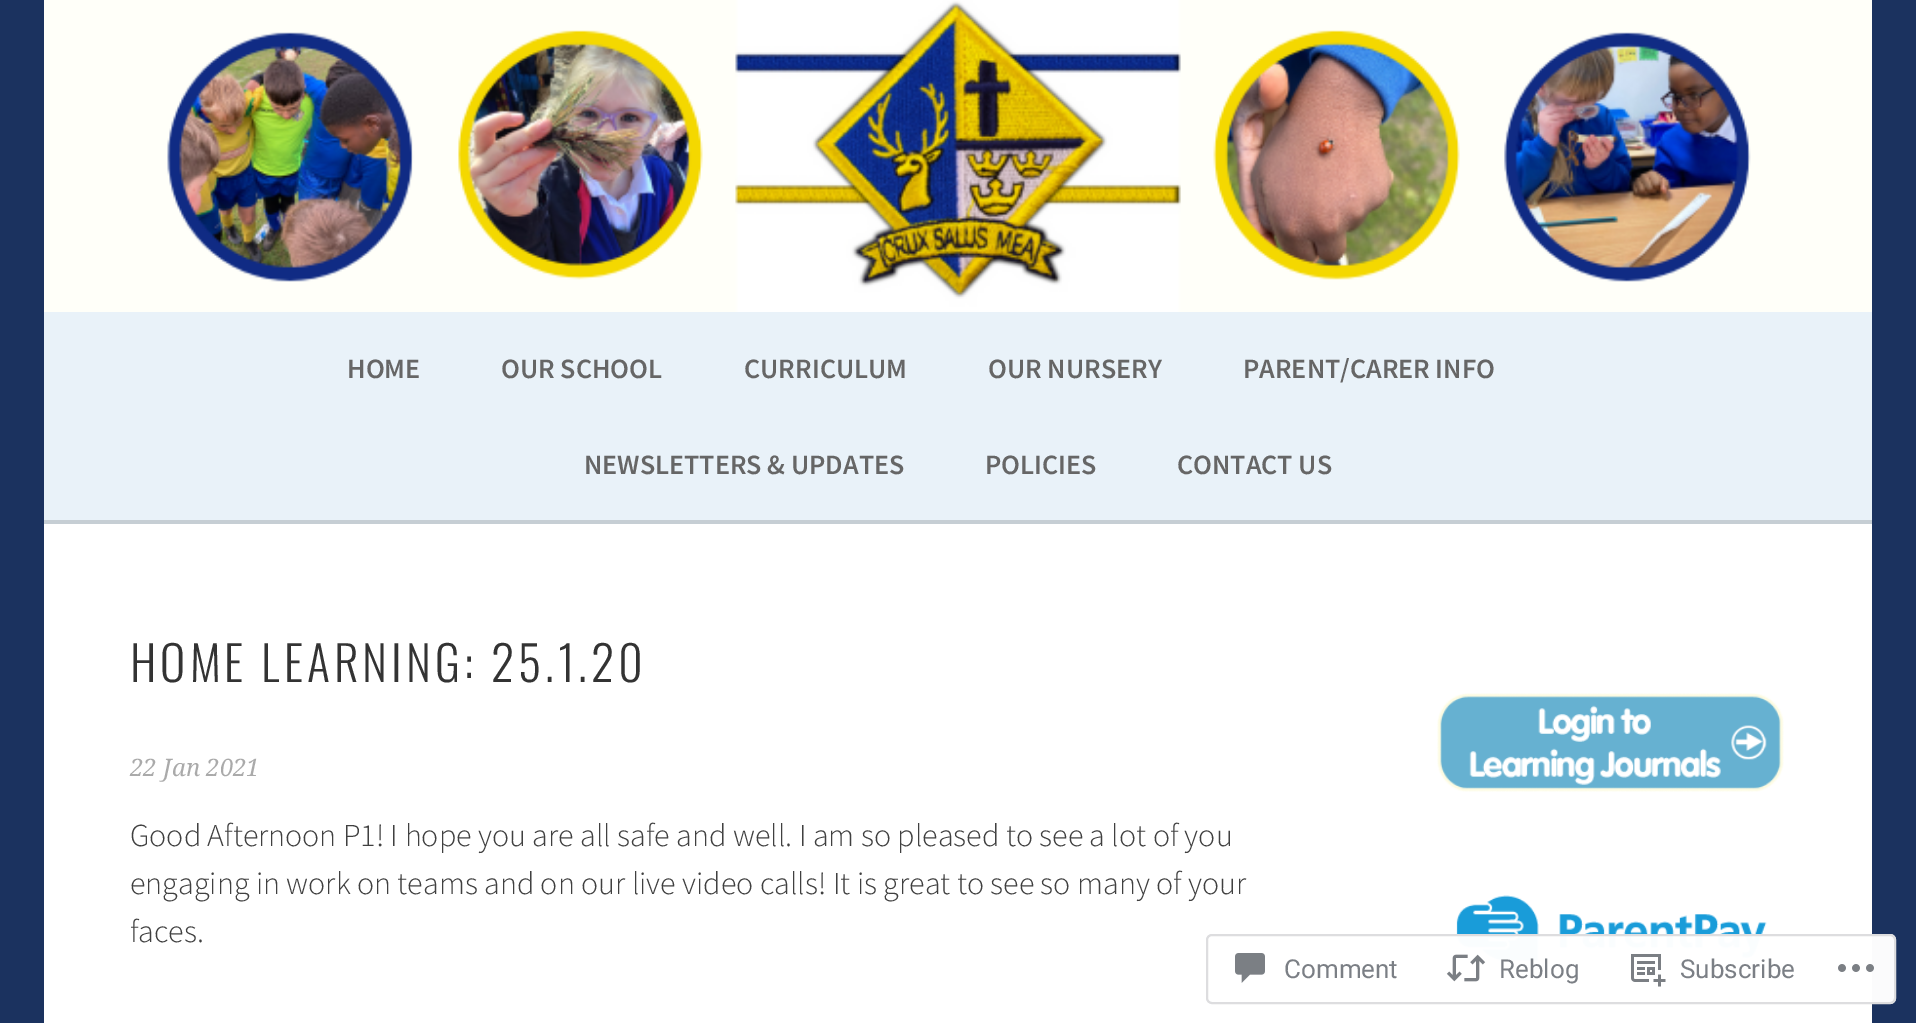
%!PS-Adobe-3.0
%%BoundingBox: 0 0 1916 1023
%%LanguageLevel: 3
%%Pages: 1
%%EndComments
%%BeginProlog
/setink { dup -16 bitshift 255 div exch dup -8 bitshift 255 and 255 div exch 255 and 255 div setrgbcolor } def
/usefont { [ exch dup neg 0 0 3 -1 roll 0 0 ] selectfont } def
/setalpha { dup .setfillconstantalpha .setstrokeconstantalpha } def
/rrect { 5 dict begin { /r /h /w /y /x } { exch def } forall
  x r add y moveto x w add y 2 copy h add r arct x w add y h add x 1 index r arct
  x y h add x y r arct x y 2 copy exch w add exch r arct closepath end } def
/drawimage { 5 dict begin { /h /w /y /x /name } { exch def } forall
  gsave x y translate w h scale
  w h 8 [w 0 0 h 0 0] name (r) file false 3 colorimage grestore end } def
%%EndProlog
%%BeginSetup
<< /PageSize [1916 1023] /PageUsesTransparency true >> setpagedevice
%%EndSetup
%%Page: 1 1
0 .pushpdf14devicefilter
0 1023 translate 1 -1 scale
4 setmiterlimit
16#1B325F setink
0 0 1916 1023 rectfill
(img1.raw) 44 0 1828 312 drawimage
16#E9F2F9 setink
44 312 1828 208 rectfill
16#C6CED4 setink
44 520 1828 4 rectfill
/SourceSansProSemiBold-SemiBold 28 usefont
16#666666 setink
[
    [(HOME) 347 378]
    [(OUR SCHOOL) 501 378]
    [(CURRICULUM) 744 378]
    [(OUR NURSERY) 988 378]
    [(PARENT/CARER INFO) 1243 378]
    [(NEWSLETTERS & UPDATES) 584 474]
    [(POLICIES) 985 474]
    [(CONTACT US) 1177 474]
] { aload pop moveto show } forall
16#FFFFFF setink
44 524 1828 499 rectfill
/Oswald-Light 48 usefont
16#333333 setink
130 682 moveto 4 0 (HOME LEARNING: 25.1.20) ashow
/DroidSerif-Italic 24 usefont
16#AAAAAA setink
130 776 moveto (22 Jan 2021) show
/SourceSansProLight-Light 32 usefont
16#404040 setink
[
    [(Good Afternoon P1! I hope you are all safe and well. I am so pleased to see a lot of you) 130 846]
    [(engaging in work on teams and on our live video calls! It is great to see so many of your) 130 894]
    [(faces.) 130 942]
] { aload pop moveto show } forall
(img2.raw) 1437 693 347 99 drawimage
(img3.raw) 1456 895 311 66 drawimage
0.98 setalpha
16#FFFFFF setink
1206 934 690 70 6 rrect fill
16#DCDCDE setink
2 setlinewidth
1207 935 688 68 5 rrect stroke
1 setalpha
(img4.raw) 1235 953 30 30 drawimage
/Roboto-Regular 26 usefont
16#7B7F85 setink
1284 978 moveto (Comment) show
(img5.raw) 1446 954 40 28 drawimage
1499 978 moveto (Reblog) show
(img6.raw) 1631 954 35 33 drawimage
1680 978 moveto (Subscribe) show
(img7.raw) 1838 964 36 8 drawimage
.poppdf14devicefilter showpage
%%EOF
